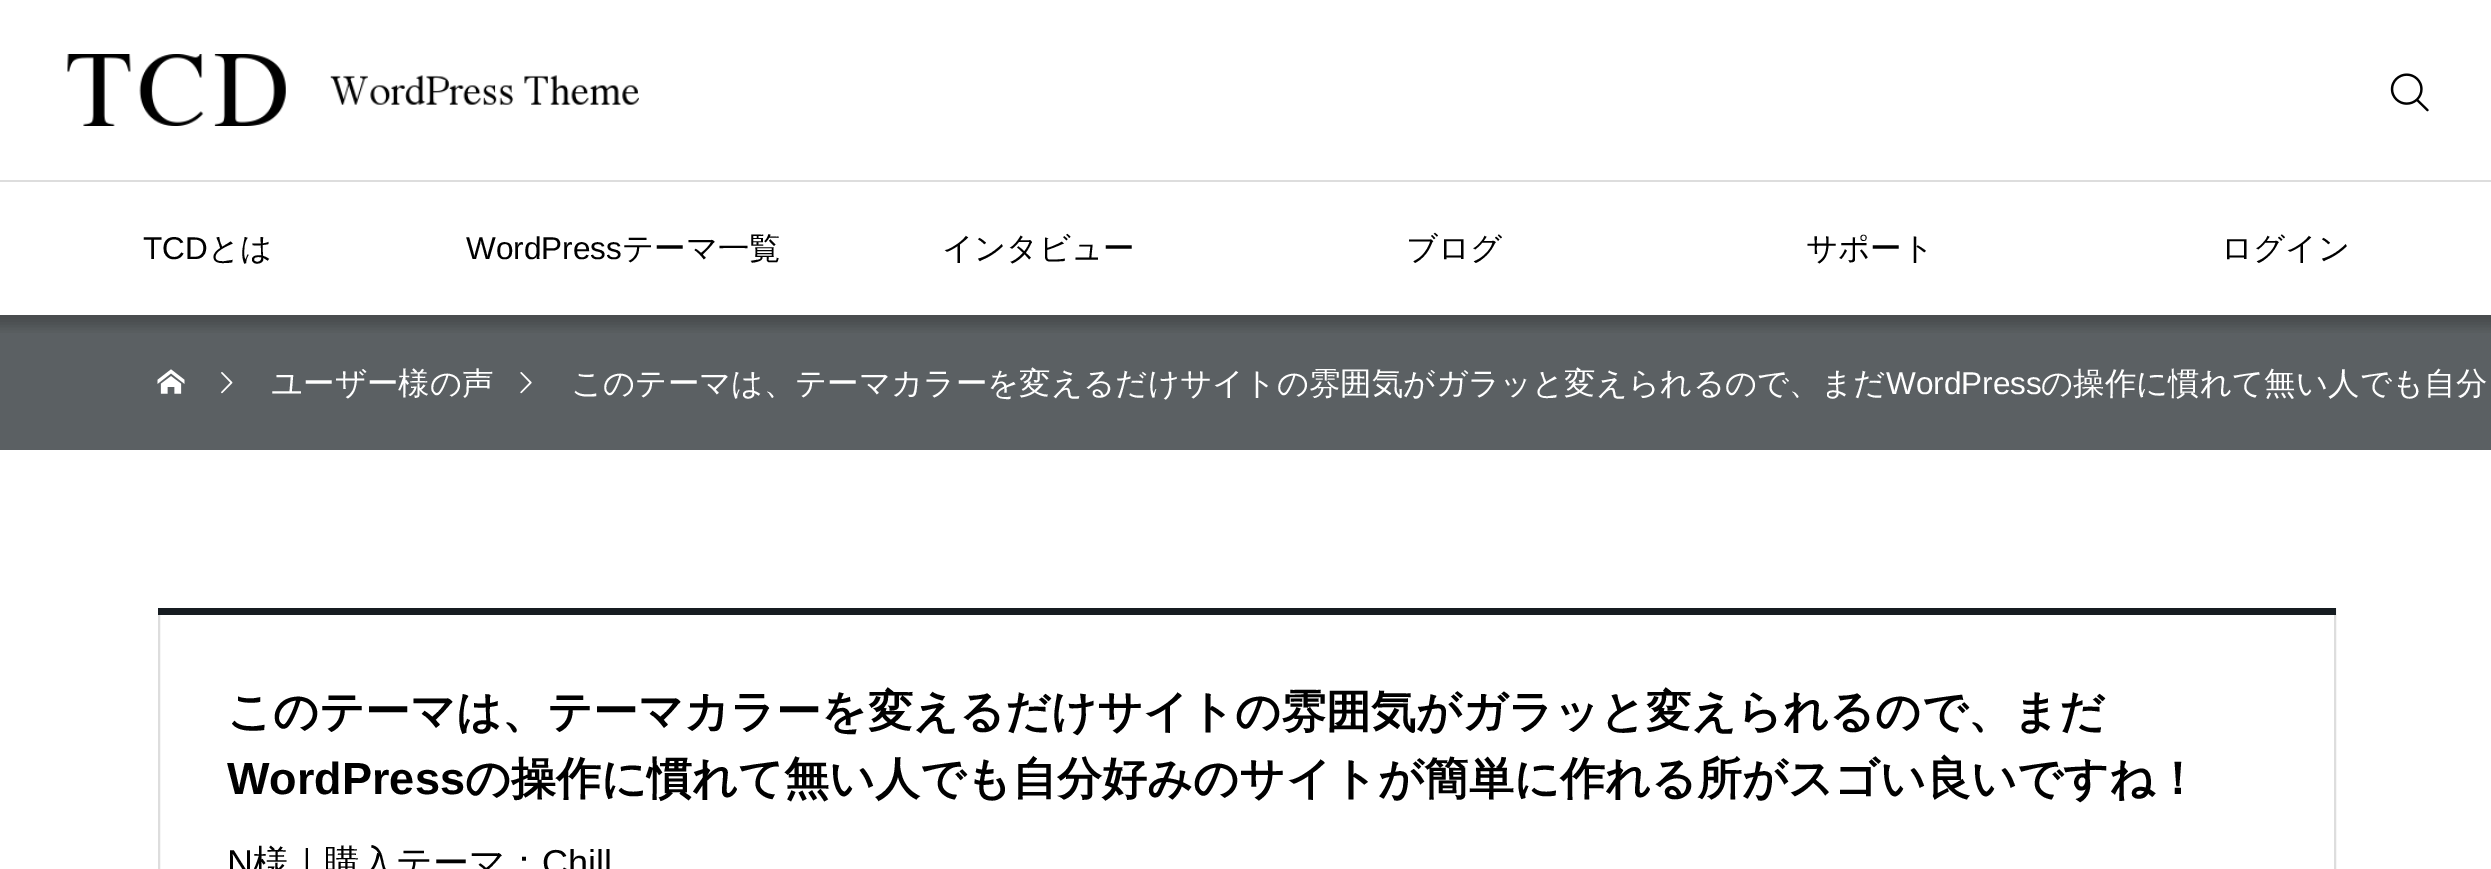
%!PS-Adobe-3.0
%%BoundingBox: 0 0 2491 869
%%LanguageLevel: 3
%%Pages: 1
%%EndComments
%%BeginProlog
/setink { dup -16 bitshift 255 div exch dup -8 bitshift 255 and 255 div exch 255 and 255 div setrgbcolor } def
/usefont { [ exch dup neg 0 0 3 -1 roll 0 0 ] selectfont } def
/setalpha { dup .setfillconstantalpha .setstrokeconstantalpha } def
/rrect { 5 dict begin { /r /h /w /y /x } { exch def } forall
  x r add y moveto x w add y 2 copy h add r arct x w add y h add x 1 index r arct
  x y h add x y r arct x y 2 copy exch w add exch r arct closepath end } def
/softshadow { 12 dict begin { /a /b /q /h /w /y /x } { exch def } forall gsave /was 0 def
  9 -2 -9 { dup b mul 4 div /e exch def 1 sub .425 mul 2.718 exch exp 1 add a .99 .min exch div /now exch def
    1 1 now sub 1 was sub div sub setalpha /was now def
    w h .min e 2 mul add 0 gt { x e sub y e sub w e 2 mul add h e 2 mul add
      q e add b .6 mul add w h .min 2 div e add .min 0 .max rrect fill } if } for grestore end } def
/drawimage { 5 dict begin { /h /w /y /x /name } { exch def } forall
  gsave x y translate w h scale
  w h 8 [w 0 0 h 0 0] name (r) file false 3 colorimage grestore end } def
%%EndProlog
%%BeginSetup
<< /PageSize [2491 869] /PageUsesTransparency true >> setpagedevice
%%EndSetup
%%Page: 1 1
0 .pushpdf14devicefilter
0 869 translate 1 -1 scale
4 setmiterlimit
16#FFFFFF setink
0 0 2491 869 rectfill
16#5B6063 setink
0 315 2491 135 rectfill
gsave
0 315 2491 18 rectclip
16#000000 setink
-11 -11 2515 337 0 5.5 0.2 softshadow
grestore
(img1.raw) 67 54 572 72 drawimage
(img2.raw) 2390 73 39 39 drawimage
16#DDDDDD setink
0 180 2491 2 rectfill
/LiberationSans-Regular 31.5 usefont
16#000000 setink
143 259 moveto (TCD) show
/WenQuanYiZenHei-Medium 31.5 usefont
208 259 moveto (とは) show
/LiberationSans-Regular 31.5 usefont
466 259 moveto (WordPress) show
/WenQuanYiZenHei-Medium 31.5 usefont
[
    [(テーマ一覧) 622 259]
    [(インタビュー) 942 259]
    [(ブログ) 1406 259]
    [(サポート) 1806 259]
    [(ログイン) 2221 259]
] { aload pop moveto show } forall
(img3.raw) 157 369 28 25 drawimage
(img4.raw) 221 372 12 22 drawimage
16#FFFFFF setink
271 394 moveto (ユーザー様の声) show
(img5.raw) 520 372 12 22 drawimage
571 394 moveto (このテーマは、テーマカラーを変えるだけサイトの雰囲気がガラッと変えられるので、まだ) show
/LiberationSans-Regular 31.5 usefont
1886 394 moveto (WordPress) show
/WenQuanYiZenHei-Medium 31.5 usefont
2041 394 moveto (の操作に慣れて無い人でも自分) show
16#DDDDDD setink
2 setlinewidth
159 609 2176 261 rectstroke
16#161C21 setink
158 608 2178 7 rectfill
/WenQuanYiZenHei-Bold 45 usefont
16#000000 setink
227 727 moveto (このテーマは、テーマカラーを変えるだけサイトの雰囲気がガラッと変えられるので、まだ) show
/LiberationSans-Bold 45 usefont
227 794 moveto (WordPress) show
/WenQuanYiZenHei-Bold 45 usefont
465 794 moveto (の操作に慣れて無い人でも自分好みのサイトが簡単に作れる所がスゴい良いですね！) show
/LiberationSans-Regular 36 usefont
227 875 moveto (N) show
/WenQuanYiZenHei-Medium 36 usefont
253 875 moveto (様｜購入テーマ：) show
/LiberationSans-Regular 36 usefont
542 875 moveto (Chill) show
.poppdf14devicefilter showpage
%%EOF
